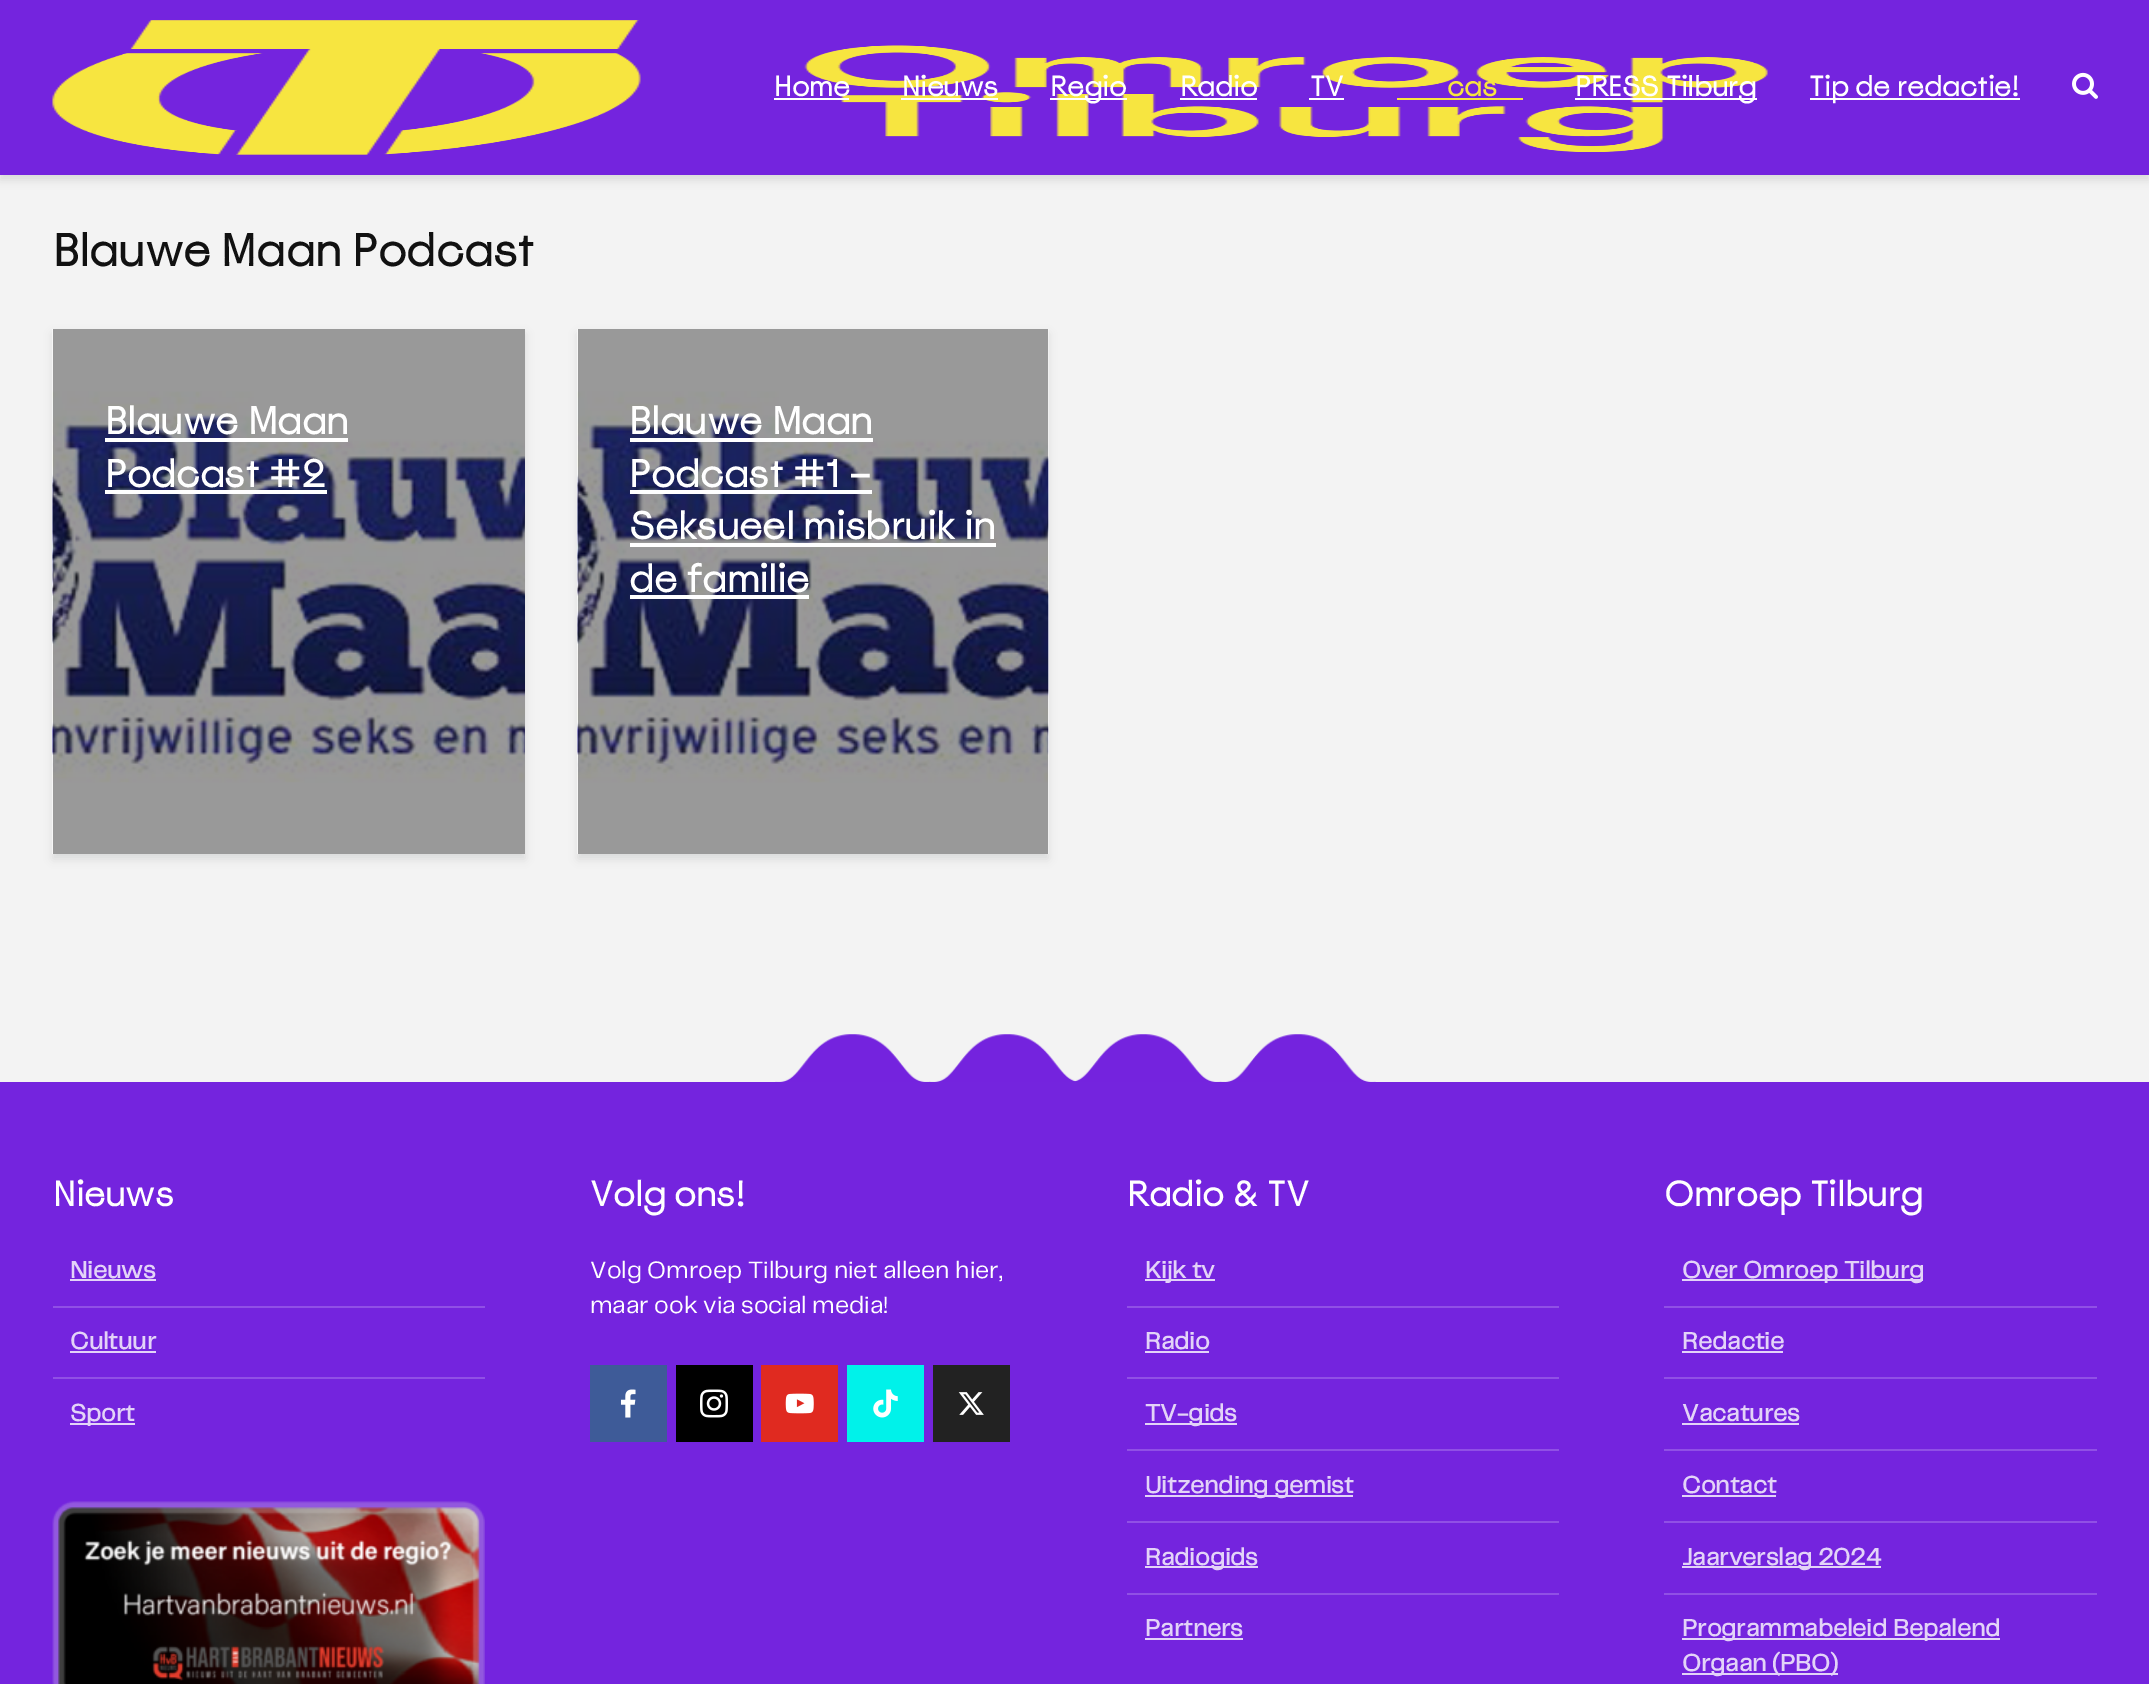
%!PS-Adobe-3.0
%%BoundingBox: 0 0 2149 1684
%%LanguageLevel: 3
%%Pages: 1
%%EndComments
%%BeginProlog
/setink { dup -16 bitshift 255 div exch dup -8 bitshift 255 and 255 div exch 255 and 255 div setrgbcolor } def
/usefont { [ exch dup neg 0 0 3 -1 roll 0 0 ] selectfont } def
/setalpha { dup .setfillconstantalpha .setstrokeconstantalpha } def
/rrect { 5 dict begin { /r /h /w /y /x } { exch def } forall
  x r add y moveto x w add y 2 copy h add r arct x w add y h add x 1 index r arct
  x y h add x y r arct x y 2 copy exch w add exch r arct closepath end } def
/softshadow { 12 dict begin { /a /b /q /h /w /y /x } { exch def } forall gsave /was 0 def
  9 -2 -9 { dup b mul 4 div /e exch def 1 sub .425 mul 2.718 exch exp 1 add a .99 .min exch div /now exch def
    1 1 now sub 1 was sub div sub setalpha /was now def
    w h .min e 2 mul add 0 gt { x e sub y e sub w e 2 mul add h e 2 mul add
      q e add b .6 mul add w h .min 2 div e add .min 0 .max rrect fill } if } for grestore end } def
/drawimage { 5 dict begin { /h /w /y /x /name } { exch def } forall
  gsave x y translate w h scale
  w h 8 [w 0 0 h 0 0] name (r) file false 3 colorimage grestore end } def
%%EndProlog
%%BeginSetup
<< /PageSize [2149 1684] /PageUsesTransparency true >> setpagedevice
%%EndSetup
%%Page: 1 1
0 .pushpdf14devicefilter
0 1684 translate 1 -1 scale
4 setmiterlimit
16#F3F3F3 setink
0 0 2149 1684 rectfill
16#000101 setink
0 5 2149 175 0 4.5 0.1 softshadow
16#7424DE setink
0 0 2149 175 rectfill
(img1.raw) 52 20 1716 135 drawimage
/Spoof-Bold 28 usefont
16#FFFFFF setink
774 96 moveto (Home) show
774 98 75 2 rectfill
902 96 moveto (Nieuws) show
901 98 97 2 rectfill
1050 98 77 2 rectfill
1050 96 moveto (Regio) show
1180 96 moveto (Radio) show
1180 98 77 2 rectfill
1310 96 moveto (TV) show
1309 98 35 2 rectfill
16#F7E540 setink
1447 96 moveto (cas) show
1397 98 126 2 rectfill
16#FFFFFF setink
1575 98 182 2 rectfill
1575 96 moveto (PRESS Tilburg) show
1810 98 210 2 rectfill
1809 96 moveto (Tip de redactie!) show
(img2.raw) 2072 72 26 27 drawimage
/Spoof-Bold 45.5 usefont
16#111111 setink
53 266 moveto (Blauwe Maan Podcast) show
16#000101 setink
53 334 472 525 0 4.5 0.1 softshadow
(img3.raw) 52 329 473 525 drawimage
/Spoof-Bold 38.5 usefont
16#FFFFFF setink
105 434 moveto (Blauwe Maan) show
105 438 243 4 rectfill
105 487 moveto (Podcast #2) show
105 490 222 4 rectfill
16#000101 setink
578 334 470 525 0 4.5 0.1 softshadow
(img4.raw) 577 329 472 525 drawimage
16#FFFFFF setink
629 434 moveto (Blauwe Maan) show
630 438 243 4 rectfill
629 487 moveto (Podcast #1 –) show
630 490 242 4 rectfill
629 539 moveto (Seksueel misbruik in) show
630 543 366 4 rectfill
629 592 moveto (de familie) show
630 595 179 4 rectfill
16#7424DE setink
0 1082 2149 602 rectfill
(img5.raw) 775 1034 601 48 drawimage
/Spoof-Bold 35 usefont
16#FFFFFF setink
53 1206 moveto (Nieuws) show
16#9050E5 setink
53 1306 432 2 rectfill
/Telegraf-Bold 24.5 usefont
16#E3D3F8 setink
70 1278 moveto (Nieuws) show
70 1279 86 2 rectfill
16#9050E5 setink
53 1377 432 2 rectfill
16#E3D3F8 setink
70 1349 moveto (Cultuur) show
70 1351 86 2 rectfill
70 1423 65 2 rectfill
70 1421 moveto (Sport) show
(img6.raw) 52 1501 433 183 drawimage
/Spoof-Bold 35 usefont
16#FFFFFF setink
590 1206 moveto (Volg ons!) show
/Telegraf-Regular 24.5 usefont
590 1278 moveto (Volg Omroep Tilburg niet alleen hier,) show
590 1313 moveto (maar ook via social media!) show
16#3E5B98 setink
590 1365 77 77 rectfill
(img7.raw) 620 1389 16 29 drawimage
16#000000 setink
676 1365 77 77 rectfill
(img8.raw) 700 1389 28 29 drawimage
16#E02A20 setink
761 1365 77 77 rectfill
(img9.raw) 785 1393 29 21 drawimage
16#00F2EA setink
847 1365 77 77 rectfill
(img10.raw) 873 1389 25 29 drawimage
16#222222 setink
933 1365 77 77 rectfill
(img11.raw) 958 1392 26 23 drawimage
/Spoof-Bold 35 usefont
16#FFFFFF setink
1127 1206 moveto (Radio & TV) show
16#9050E5 setink
1127 1306 432 2 rectfill
16#E3D3F8 setink
1145 1279 70 2 rectfill
/Telegraf-Bold 24.5 usefont
1145 1278 moveto (Kijk tv) show
16#9050E5 setink
1127 1377 432 2 rectfill
16#E3D3F8 setink
1145 1349 moveto (Radio) show
[
    [1145 1351 64 2 16#E3D3F8]
    [1127 1449 432 2 16#9050E5]
    [1145 1423 92 2 16#E3D3F8]
] { aload pop setink rectfill } forall
1145 1421 moveto (TV-gids) show
16#9050E5 setink
1127 1521 432 2 rectfill
16#E3D3F8 setink
1145 1495 208 2 rectfill
1145 1493 moveto (Uitzending gemist) show
16#9050E5 setink
1127 1593 432 2 rectfill
16#E3D3F8 setink
1145 1566 113 2 rectfill
1145 1565 moveto (Radiogids) show
1145 1636 moveto (Partners) show
1145 1638 98 2 rectfill
/Spoof-Bold 35 usefont
16#FFFFFF setink
1664 1206 moveto (Omroep Tilburg) show
16#9050E5 setink
1664 1306 433 2 rectfill
16#E3D3F8 setink
1682 1279 241 2 rectfill
/Telegraf-Bold 24.5 usefont
1682 1278 moveto (Over Omroep Tilburg) show
16#9050E5 setink
1664 1377 433 2 rectfill
16#E3D3F8 setink
1682 1349 moveto (Redactie) show
1682 1351 101 2 rectfill
16#9050E5 setink
1664 1449 433 2 rectfill
16#E3D3F8 setink
1682 1421 moveto (Vacatures) show
1682 1423 117 2 rectfill
16#9050E5 setink
1664 1521 433 2 rectfill
16#E3D3F8 setink
1682 1493 moveto (Contact) show
[
    [1682 1495 94 2 16#E3D3F8]
    [1664 1593 433 2 16#9050E5]
    [1682 1566 199 2 16#E3D3F8]
] { aload pop setink rectfill } forall
1682 1565 moveto (Jaarverslag 2024) show
1682 1638 318 2 rectfill
1682 1636 moveto (Programmabeleid Bepalend) show
1682 1673 156 2 rectfill
1682 1671 moveto (Orgaan \(PBO\)) show
.poppdf14devicefilter showpage
%%EOF
